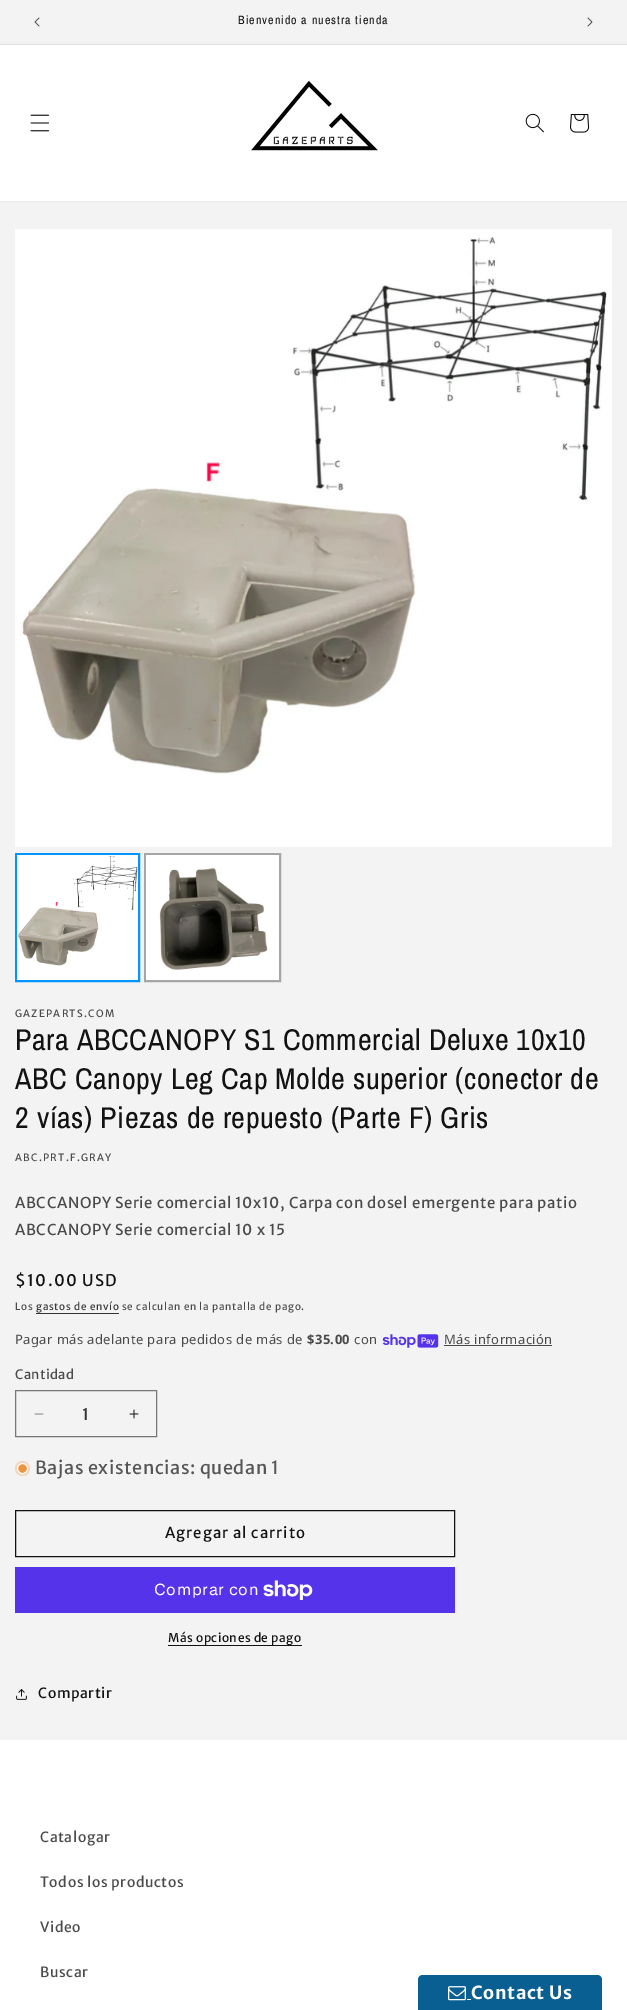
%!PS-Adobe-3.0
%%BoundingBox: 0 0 627 2010
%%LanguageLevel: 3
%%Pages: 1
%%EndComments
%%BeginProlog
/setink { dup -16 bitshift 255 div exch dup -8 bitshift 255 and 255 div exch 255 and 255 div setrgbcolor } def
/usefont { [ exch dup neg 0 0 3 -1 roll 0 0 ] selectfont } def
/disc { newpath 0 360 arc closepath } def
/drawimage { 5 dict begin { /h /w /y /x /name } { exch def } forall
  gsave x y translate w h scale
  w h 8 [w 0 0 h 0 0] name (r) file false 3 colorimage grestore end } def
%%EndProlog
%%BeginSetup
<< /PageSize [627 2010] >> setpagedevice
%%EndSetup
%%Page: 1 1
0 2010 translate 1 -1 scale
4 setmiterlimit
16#FFFFFF setink
0 0 627 2010 rectfill
16#F3F3F3 setink
0 0 627 44 rectfill
16#E1E1E1 setink
0 44 627 1 rectfill
(img1.raw) 34 17 6 10 drawimage
/ArchivoNarrow-Regular 12 usefont
16#121212 setink
238 24 moveto 1 0 (Bienvenido a nuestra tienda) ashow
(img2.raw) 587 17 6 10 drawimage
16#EBEBEB setink
0 201 627 1 rectfill
(img3.raw) 30 114 20 18 drawimage
(img4.raw) 251 81 127 70 drawimage
(img5.raw) 525 113 19 20 drawimage
(img6.raw) 570 114 20 19 drawimage
16#F3F3F3 setink
0 202 627 1538 rectfill
(img7.raw) 15 229 597 618 drawimage
(img8.raw) 23 237 584 537 drawimage
16#0095FF setink
2 setlinewidth
16 854 123 127 rectstroke
(img9.raw) 17 855 121 125 drawimage
16#A6A6A6 setink
145 854 135 127 rectstroke
(img10.raw) 146 855 133 125 drawimage
/MerriweatherSans-Regular 10 usefont
16#4A4A4A setink
15 1017 moveto 1.25 0 (GAZEPARTS.COM) ashow
/ArchivoNarrow-Regular 30 usefont
16#121212 setink
15 1050 moveto 0.6 0 (Para ABCCANOPY S1 Commercial Deluxe 10x10) ashow
15 1089 moveto 0.6 0 (ABC Canopy Leg Cap Molde superior \(conector de) ashow
15 1128 moveto 0.6 0 (2 vías\) Piezas de repuesto \(Parte F\) Gris) ashow
/MerriweatherSans-Regular 10 usefont
16#4A4A4A setink
15 1161 moveto 1.25 0 (ABC.PRT.F.GRAY) ashow
/MerriweatherSans-Regular 15 usefont
15 1208 moveto 0.6 0 (ABCCANOPY Serie comercial 10x10, Carpa con dosel emergente para patio) ashow
15 1235 moveto 0.6 0 (ABCCANOPY Serie comercial 10 x 15) ashow
/MerriweatherSans-Regular 16 usefont
16#121212 setink
15 1286 moveto 1.25 0 ($10.00 USD) ashow
/MerriweatherSans-Regular 10 usefont
16#4A4A4A setink
15 1310 moveto 0.7 0 (Los) ashow
16#343434 setink
36 1310 moveto 0.7 0 (gastos de envío) ashow
36 1313 83 1 rectfill
16#4A4A4A setink
122 1310 moveto 0.7 0 (se calculan en la pantalla de pago.) ashow
/NotoSans-Regular 13 usefont
15 1344 moveto 0.4 0 (Pagar más adelante para pedidos de más de) ashow
/NotoSans-Bold 13 usefont
307 1344 moveto 0.4 0 ($35.00) ashow
/NotoSans-Regular 13 usefont
354 1344 moveto 0.4 0 (con) ashow
(img11.raw) 382 1334 57 14 drawimage
444 1344 moveto 0.4 0 (Más información) ashow
444 1345 108 1 rectfill
/MerriweatherSans-Regular 13 usefont
15 1379 moveto 0.4 0 (Cantidad) ashow
(img12.raw) 34 1413 10 2 drawimage
(img13.raw) 129 1409 10 10 drawimage
16#777777 setink
1 setlinewidth
15.5 1390.5 141 46 rectstroke
/MerriweatherSans-Regular 16 usefont
16#343434 setink
82 1420 moveto (1) show
16#F2D7BE setink
22.5 1468.5 7.5 disc fill
16#EE9441 setink
22.5 1468.5 5 disc gsave fill grestore
16#FFFFFF setink
stroke
/MerriweatherSans-Regular 18 usefont
16#565656 setink
35 1474 moveto 0.6 0 (Bajas existencias: quedan 1) ashow
16#121212 setink
15.5 1510.5 439 46 rectstroke
/MerriweatherSans-Regular 15 usefont
165 1538 moveto 1 0 (Agregar al carrito) ashow
16#5433EB setink
15 1567 440 46 rectfill
/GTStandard-Regular 16 usefont
16#FFFFFF setink
154 1595 moveto 0.6 0 (Comprar con) ashow
(img14.raw) 263 1580 50 20 drawimage
/MerriweatherSans-Regular 12 usefont
16#121212 setink
168 1642 moveto 0.5 0 (Más opciones de pago) ashow
168 1645 134 1 rectfill
(img15.raw) 16 1689 11 11 drawimage
/MerriweatherSans-Regular 14 usefont
38 1698 moveto 0.6 0 (Compartir) ashow
16#4A4A4A setink
40 1842 moveto 0.6 0 (Catalogar) ashow
40 1887 moveto 0.6 0 (Todos los productos) ashow
40 1932 moveto 0.6 0 (Video) ashow
40 1977 moveto 0.6 0 (Buscar) ashow
16#095F91 setink
423 1975 moveto 597 1975 lineto 600 1975 602 1977 602 1980 curveto 602 2010 lineto 418 2010 lineto 418 1980 lineto 418 1977 420 1975 423 1975 curveto closepath fill
(img16.raw) 448 1986 18 15 drawimage
16#FFFFFF setink
467 1999 4 1 rectfill
/MerriweatherSans-Bold 18 usefont
471 1999 moveto 0.6 0 (Contact Us) ashow
showpage
%%EOF
